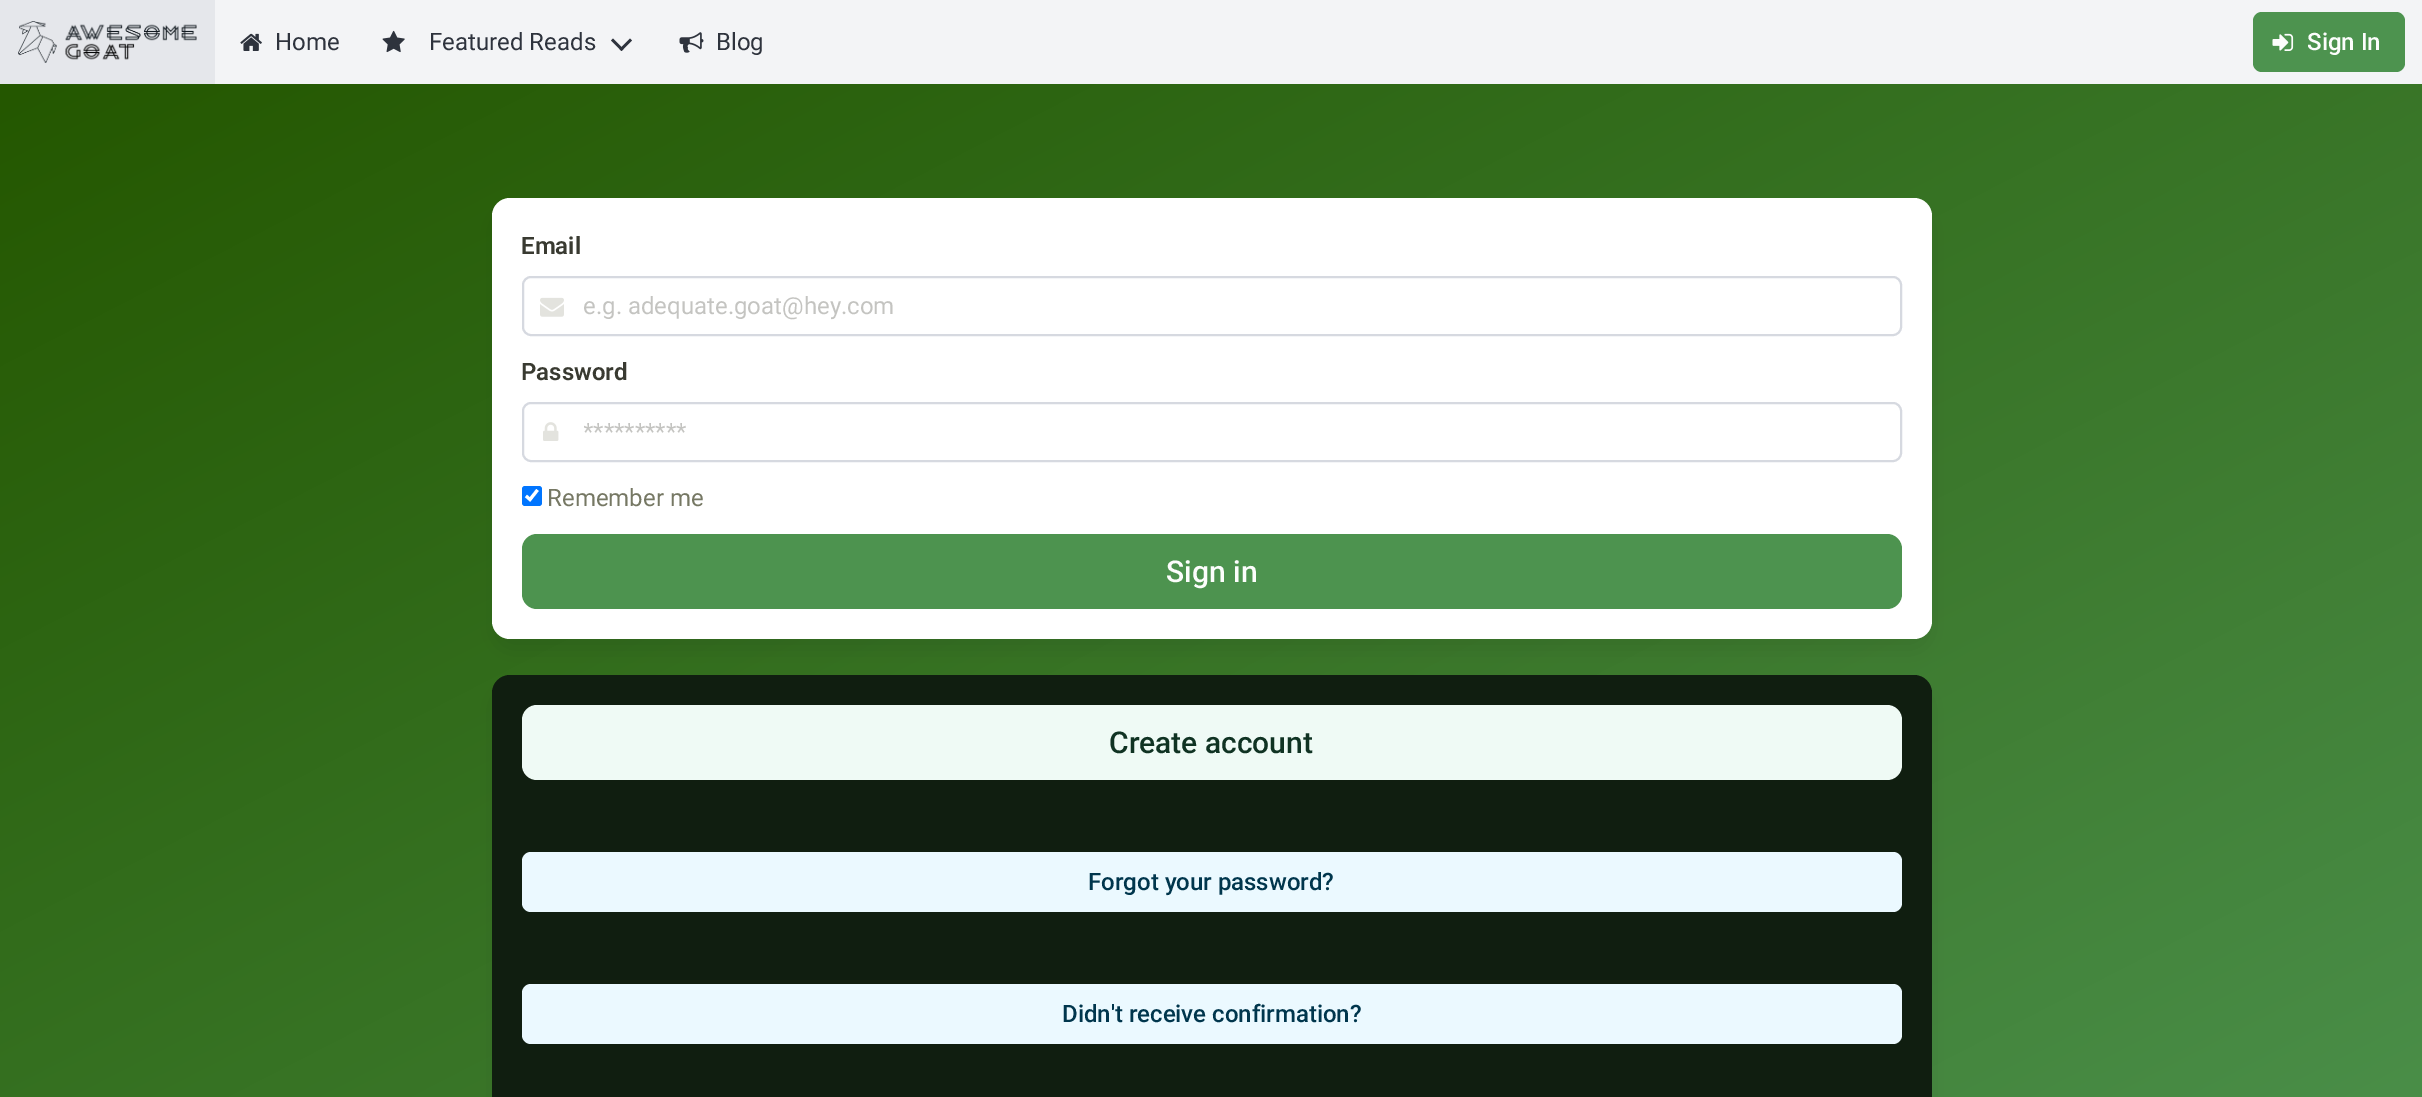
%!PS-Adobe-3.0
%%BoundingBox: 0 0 2422 1097
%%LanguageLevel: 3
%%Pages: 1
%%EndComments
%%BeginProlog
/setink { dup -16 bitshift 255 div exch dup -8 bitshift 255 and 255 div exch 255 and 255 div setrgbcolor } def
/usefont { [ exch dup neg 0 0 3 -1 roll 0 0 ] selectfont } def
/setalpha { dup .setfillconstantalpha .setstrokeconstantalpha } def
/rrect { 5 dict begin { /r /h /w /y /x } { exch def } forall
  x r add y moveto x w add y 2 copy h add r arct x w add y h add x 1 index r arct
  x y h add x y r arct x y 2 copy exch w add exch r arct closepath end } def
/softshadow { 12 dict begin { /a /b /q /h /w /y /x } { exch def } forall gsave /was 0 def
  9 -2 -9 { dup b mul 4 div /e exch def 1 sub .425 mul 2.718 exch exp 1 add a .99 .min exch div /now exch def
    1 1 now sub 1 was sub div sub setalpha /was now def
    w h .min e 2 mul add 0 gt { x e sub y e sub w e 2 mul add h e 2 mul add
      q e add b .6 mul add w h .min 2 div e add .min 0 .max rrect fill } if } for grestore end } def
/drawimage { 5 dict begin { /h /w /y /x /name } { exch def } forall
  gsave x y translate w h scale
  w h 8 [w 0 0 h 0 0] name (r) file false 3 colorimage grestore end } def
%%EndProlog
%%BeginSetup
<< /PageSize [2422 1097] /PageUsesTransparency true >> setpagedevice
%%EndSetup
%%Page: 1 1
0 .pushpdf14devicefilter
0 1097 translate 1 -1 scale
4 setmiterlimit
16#FFFFFF setink
0 0 2422 1097 rectfill
16#F3F4F6 setink
215 0 2207 84 rectfill
16#E5E7EB setink
0 0 215 84 rectfill
(img1.raw) 18 21 179 42 drawimage
(img2.raw) 240 33 22 18 drawimage
/Roboto-Regular 24 usefont
16#2E333D setink
275 50 moveto (Home) show
(img3.raw) 382 30 23 23 drawimage
429 50 moveto (Featured Reads) show
619.5 49 moveto 630 38.5 lineto 632 40.5 lineto 621.5 51 lineto closepath fill
611 40.5 moveto 613 38.5 lineto 623.5 49 lineto 621.5 51 lineto closepath fill
(img4.raw) 679 32 25 21 drawimage
716 50 moveto (Blog) show
16#4D934F setink
2253 12 152 60 9 rrect fill
(img5.raw) 2272 33 22 18 drawimage
/Roboto-Medium 24 usefont
16#FCFDFC setink
2307 50 moveto (Sign In) show
gsave 0 84 moveto 2422 84 lineto 2422 1097 lineto 0 1097 lineto closepath clip newpath
<< /ShadingType 2 /ColorSpace /DeviceRGB /Coords [703 -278 1719 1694] /Extend [true true] /Function << /FunctionType 2 /Domain [0 1] /C0 [0.141 0.341 0] /C1 [0.306 0.58 0.31] /N 1 >> >> shfill grestore
16#090A0C setink
495 213 1434 435 15 12 0.1 softshadow
16#FFFFFF setink
492 198 1440 441 18 rrect fill
/Roboto-SemiBold 24 usefont
16#393A31 setink
521 254 moveto (Email) show
16#D6D9E0 setink
2 setlinewidth
523 277 1378 58 8 rrect stroke
(img6.raw) 540 297 24 20 drawimage
gsave
584 293 1300 28 rectclip
/Roboto-Regular 24 usefont
16#C4C4C1 setink
583 314 moveto (e.g. adequate.goat@hey.com) show
grestore
16#393A31 setink
521 380 moveto (Password) show
16#D6D9E0 setink
523 403 1378 58 8 rrect stroke
(img7.raw) 543 422 16 19 drawimage
gsave
584 419 1300 28 rectclip
/Roboto-Regular 24 usefont
16#C4C4C1 setink
583 440 moveto (**********) show
grestore
16#0075FF setink
522 486 20 20 3 rrect fill
16#FFFFFF setink
3.1 setlinewidth
526 496 moveto 530 499.5 lineto 537.5 490 lineto stroke
/Roboto-Regular 24 usefont
16#767864 setink
547 506 moveto (Remember me) show
16#4D934F setink
522 534 1380 75 15 rrect fill
/Roboto-Medium 30 usefont
16#FCFDFC setink
1166 582 moveto (Sign in) show
16#090A0C setink
495 690 1434 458 15 12 0.1 softshadow
16#101E10 setink
492 675 1440 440 18 rrect fill
16#EFFAF5 setink
522 705 1380 75 15 rrect fill
16#103323 setink
1109 753 moveto (Create account) show
16#EBF9FF setink
522 852 1380 60 9 rrect fill
/Roboto-Medium 24 usefont
16#00364D setink
1088 890 moveto (Forgot your password?) show
16#EBF9FF setink
522 984 1380 60 9 rrect fill
16#00364D setink
1062 1022 moveto (Didn't receive confirmation?) show
.poppdf14devicefilter showpage
%%EOF
